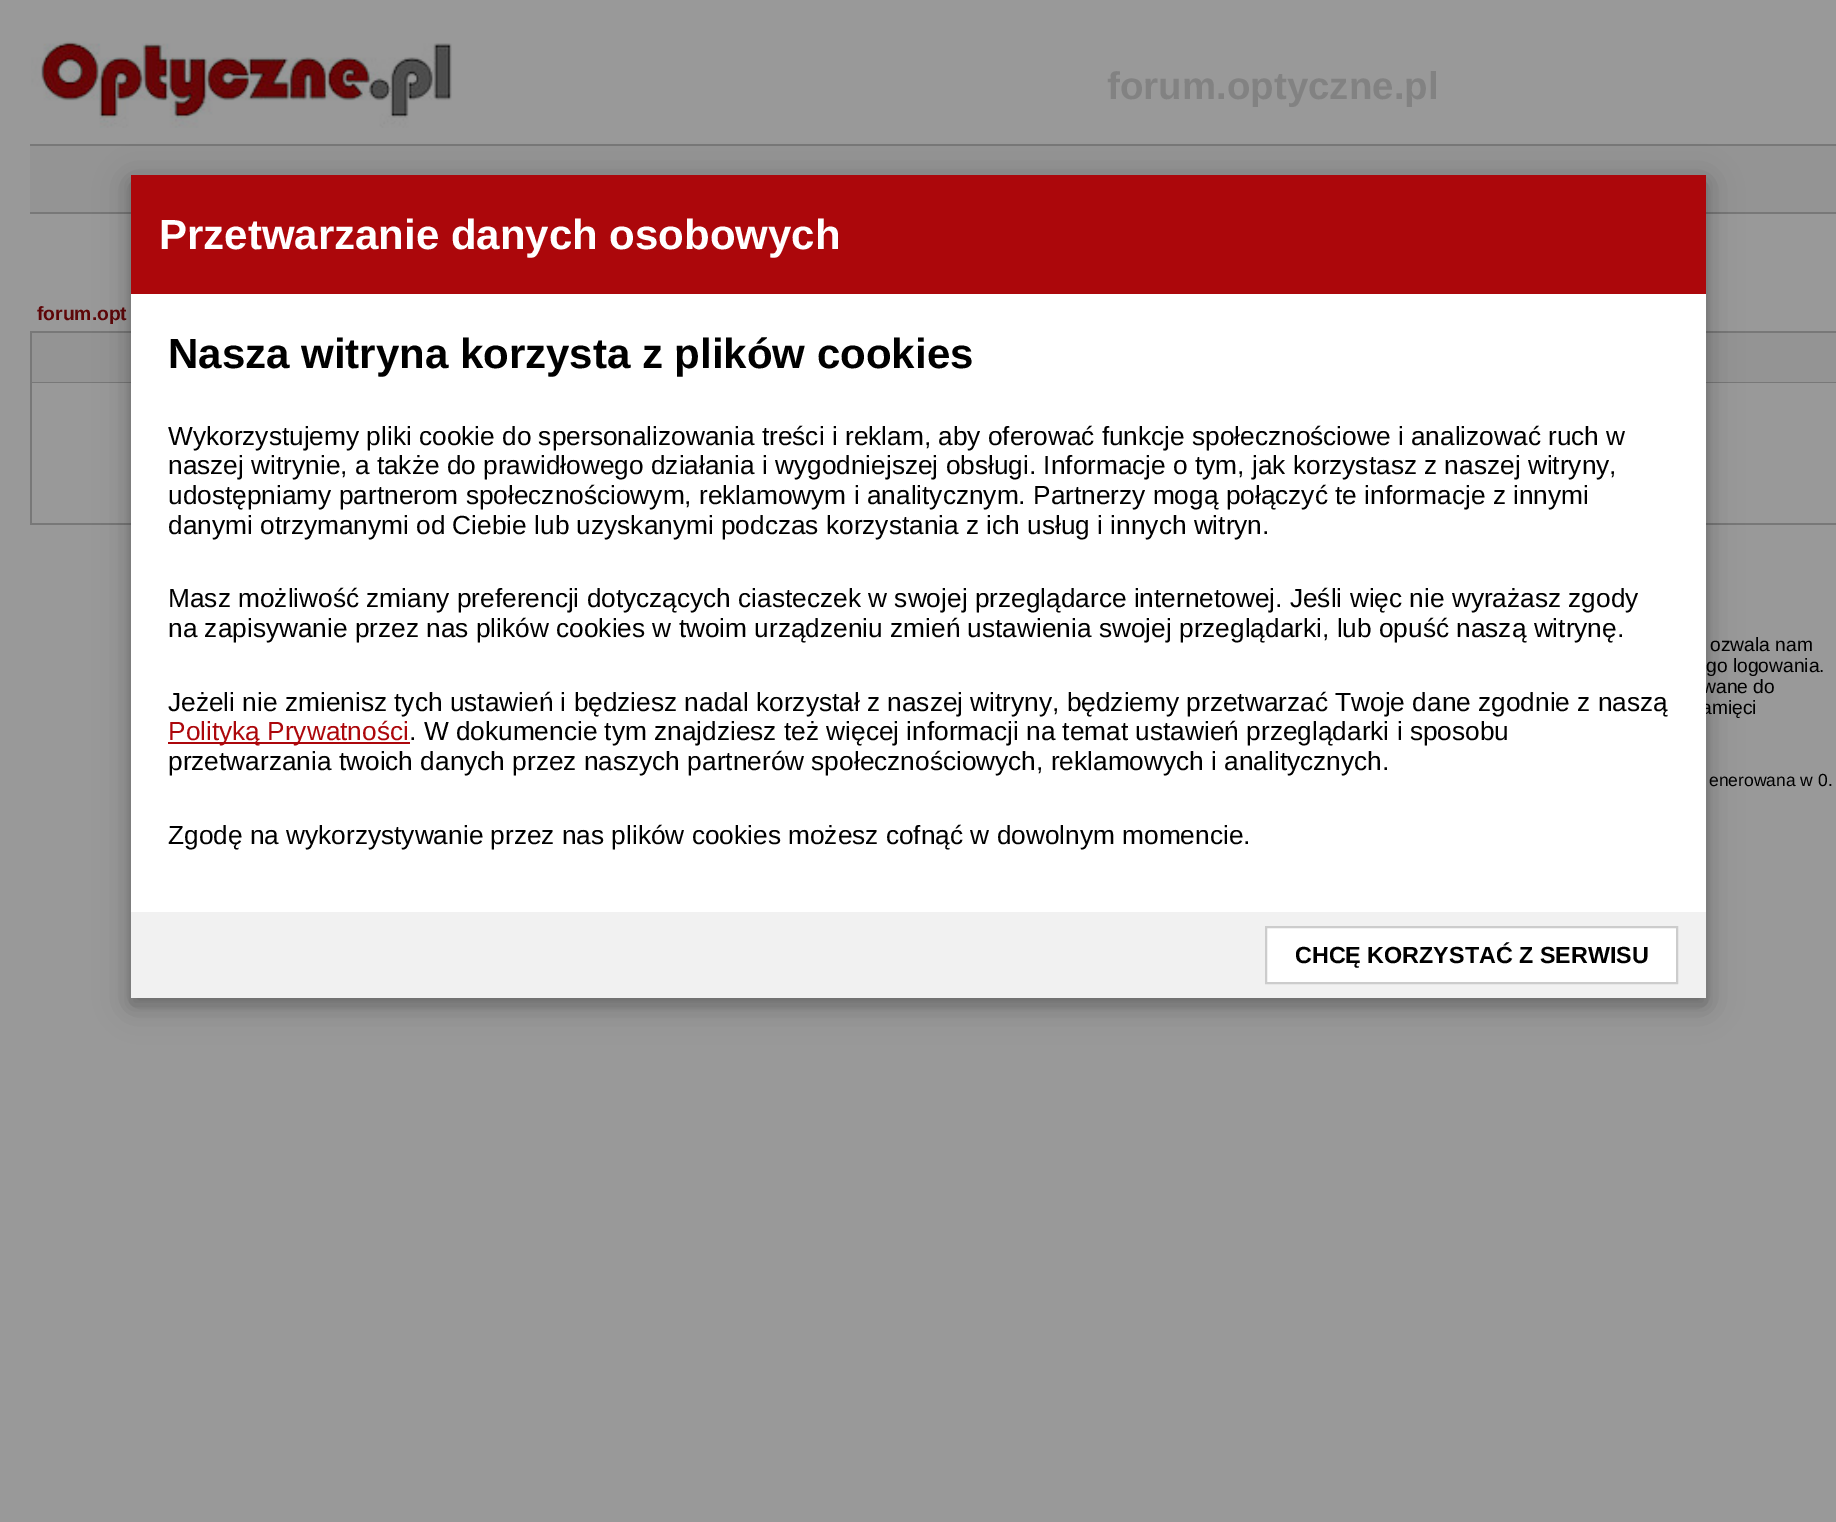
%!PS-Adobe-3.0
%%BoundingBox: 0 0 1836 1522
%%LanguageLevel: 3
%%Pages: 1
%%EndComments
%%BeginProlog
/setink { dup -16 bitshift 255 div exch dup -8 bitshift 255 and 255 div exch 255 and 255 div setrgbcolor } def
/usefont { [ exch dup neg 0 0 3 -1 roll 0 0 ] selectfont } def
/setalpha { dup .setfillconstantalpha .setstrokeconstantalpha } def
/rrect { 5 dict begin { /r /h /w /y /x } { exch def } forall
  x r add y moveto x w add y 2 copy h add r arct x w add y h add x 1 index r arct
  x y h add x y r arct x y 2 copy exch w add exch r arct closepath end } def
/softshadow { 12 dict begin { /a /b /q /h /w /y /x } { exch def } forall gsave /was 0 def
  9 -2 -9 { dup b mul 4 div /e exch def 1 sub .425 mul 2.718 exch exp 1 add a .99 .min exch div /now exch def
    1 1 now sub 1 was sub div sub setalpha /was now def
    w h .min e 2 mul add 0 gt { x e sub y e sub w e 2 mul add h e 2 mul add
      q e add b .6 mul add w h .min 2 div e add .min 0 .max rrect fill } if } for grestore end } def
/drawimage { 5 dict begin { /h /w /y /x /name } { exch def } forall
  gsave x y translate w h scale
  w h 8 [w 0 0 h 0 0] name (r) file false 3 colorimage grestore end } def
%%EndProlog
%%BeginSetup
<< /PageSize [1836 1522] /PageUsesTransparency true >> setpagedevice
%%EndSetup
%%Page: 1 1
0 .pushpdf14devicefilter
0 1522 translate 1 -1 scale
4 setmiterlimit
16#999999 setink
0 0 1836 1522 rectfill
(img1.raw) 31 41 421 87 drawimage
/LiberationSans-Bold 38.5 usefont
16#828282 setink
1107 99 moveto (forum.optyczne.pl) show
[
    [30 146 1806 66 16#949494]
    [30 144 1806 2 16#787878]
    [30 212 1806 2 16#787878]
] { aload pop setink rectfill } forall
/LiberationSans-Bold 19.25 usefont
16#5E0608 setink
37 320 moveto (forum.opt) show
[
    [30 331 1806 194 16#787878]
    [32 333 1804 49 16#949494]
    [32 383 1804 140 16#999999]
] { aload pop setink rectfill } forall
/LiberationSans-Regular 19.25 usefont
16#000000 setink
[
    [(ozwala nam) 1710 651]
    [(go logowania.) 1706 672]
    [(wane do) 1702 693]
    [(amięci) 1701 714]
] { aload pop moveto show } forall
/LiberationSans-Regular 17.5 usefont
1709 786 moveto (enerowana w 0.) show
131 182 1575 823 0 17.5 0.19 softshadow
131 182 1575 823 0 9 0.2 softshadow
16#FFFFFF setink
131 294 1575 618 rectfill
16#AC070B setink
131 175 1575 119 rectfill
/LiberationSans-Bold 42 usefont
16#FFFFFF setink
159 249 moveto (Przetwarzanie danych osobowych) show
16#000000 setink
168 368 moveto (Nasza witryna korzysta z plików cookies) show
/LiberationSans-Regular 26.25 usefont
[
    [(Wykorzystujemy pliki cookie do spersonalizowania treści i reklam, aby oferować funkcje społecznościowe i analizować ruch w) 168 445]
    [(naszej witrynie, a także do prawidłowego działania i wygodniejszej obsługi. Informacje o tym, jak korzystasz z naszej witryny,) 168 474]
    [(udostępniamy partnerom społecznościowym, reklamowym i analitycznym. Partnerzy mogą połączyć te informacje z innymi) 168 504]
    [(danymi otrzymanymi od Ciebie lub uzyskanymi podczas korzystania z ich usług i innych witryn.) 168 534]
    [(Masz możliwość zmiany preferencji dotyczących ciasteczek w swojej przeglądarce internetowej. Jeśli więc nie wyrażasz zgody) 168 607]
    [(na zapisywanie przez nas plików cookies w twoim urządzeniu zmień ustawienia swojej przeglądarki, lub opuść naszą witrynę.) 168 637]
    [(Jeżeli nie zmienisz tych ustawień i będziesz nadal korzystał z naszej witryny, będziemy przetwarzać Twoje dane zgodnie z naszą) 168 711]
] { aload pop moveto show } forall
16#AC070B setink
168 742 242 2 rectfill
168 740 moveto (Polityką Prywatności) show
16#000000 setink
[
    [(. W dokumencie tym znajdziesz też więcej informacji na temat ustawień przeglądarki i sposobu) 409 740]
    [(przetwarzania twoich danych przez naszych partnerów społecznościowych, reklamowych i analitycznych.) 168 770]
    [(Zgodę na wykorzystywanie przez nas plików cookies możesz cofnąć w dowolnym momencie.) 168 844]
] { aload pop moveto show } forall
16#F1F1F1 setink
131 912 1575 86 rectfill
16#FFFFFF setink
1266 927 moveto 1677 927 lineto 1677 983 lineto 1266 983 lineto closepath gsave fill grestore
16#CCCCCC setink
2 setlinewidth
stroke
/LiberationSans-Bold 23.3 usefont
16#000000 setink
1295 963 moveto (CHCĘ KORZYSTAĆ Z SERWISU) show
.poppdf14devicefilter showpage
%%EOF
